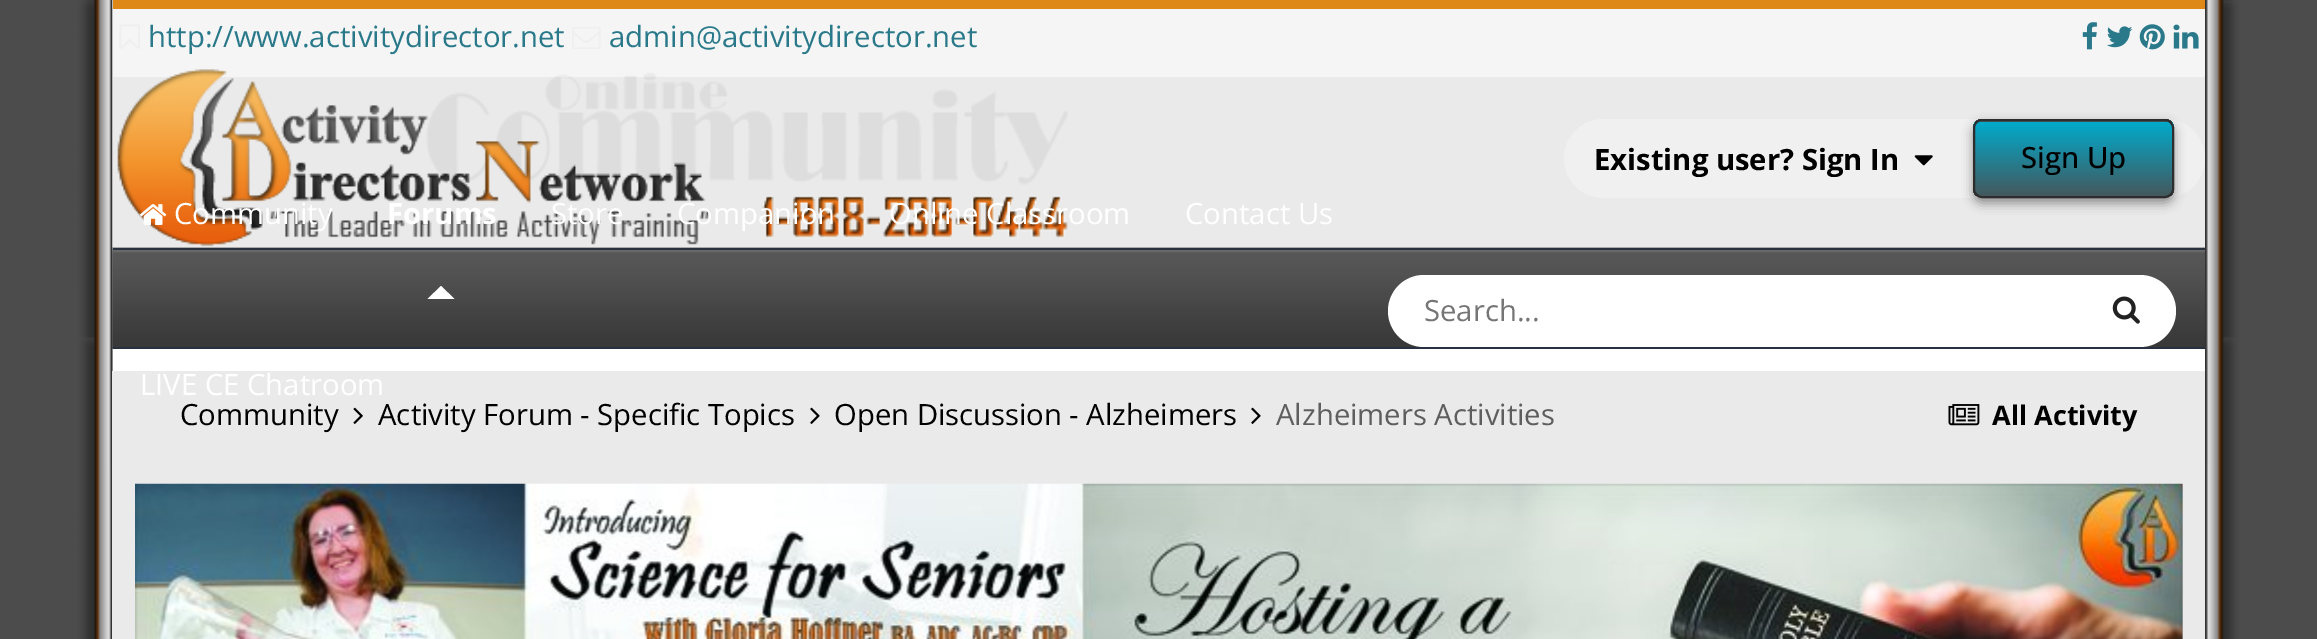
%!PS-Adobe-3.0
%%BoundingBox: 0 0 2317 639
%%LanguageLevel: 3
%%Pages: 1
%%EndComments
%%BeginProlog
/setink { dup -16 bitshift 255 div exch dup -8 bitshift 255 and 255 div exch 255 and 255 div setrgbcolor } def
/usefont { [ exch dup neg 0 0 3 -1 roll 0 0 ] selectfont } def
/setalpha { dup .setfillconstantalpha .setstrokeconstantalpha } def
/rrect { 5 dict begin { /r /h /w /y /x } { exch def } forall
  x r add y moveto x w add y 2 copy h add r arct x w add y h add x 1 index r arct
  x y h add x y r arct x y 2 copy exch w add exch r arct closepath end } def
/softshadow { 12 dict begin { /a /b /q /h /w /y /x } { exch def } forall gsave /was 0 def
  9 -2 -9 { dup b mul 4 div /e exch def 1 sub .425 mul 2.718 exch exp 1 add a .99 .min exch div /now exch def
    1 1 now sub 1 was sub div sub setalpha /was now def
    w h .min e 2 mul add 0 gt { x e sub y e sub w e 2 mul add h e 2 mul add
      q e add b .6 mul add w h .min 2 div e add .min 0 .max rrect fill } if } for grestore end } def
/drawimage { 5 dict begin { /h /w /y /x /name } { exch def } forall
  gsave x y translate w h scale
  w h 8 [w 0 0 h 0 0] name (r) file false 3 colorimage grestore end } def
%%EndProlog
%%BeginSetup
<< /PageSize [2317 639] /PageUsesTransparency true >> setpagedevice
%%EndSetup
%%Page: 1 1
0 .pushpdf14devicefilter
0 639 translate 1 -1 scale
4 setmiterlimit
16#EAEAEA setink
0 0 2317 639 rectfill
(img1.raw) 0 0 113 639 drawimage
(img2.raw) 2205 0 112 639 drawimage
(img3.raw) 112 0 1 248 drawimage
16#F5F5F5 setink
113 9 2092 68 rectfill
16#DE8818 setink
113 0 2092 9 rectfill
(img4.raw) 119 24 21 25 drawimage
/OpenSans-Regular 29.25 usefont
16#29798A setink
148 47 moveto (http://www.activitydirector.net) show
(img5.raw) 572 27 29 22 drawimage
609 47 moveto (admin@activitydirector.net) show
(img6.raw) 2082 22 15 28 drawimage
(img7.raw) 2106 26 27 22 drawimage
(img8.raw) 2139 24 26 26 drawimage
(img9.raw) 2173 24 26 25 drawimage
(img10.raw) 117 69 951 178 drawimage
16#F0F0F0 setink
1564 119 641 79 39.5 rrect fill
/OpenSans-Bold 29.25 usefont
16#000000 setink
1594 170 moveto (Existing user? Sign In) show
(img11.raw) 1914 155 19 11 drawimage
16#2D2D2D setink
1973 124 201 79 9 5.5 0.5 softshadow
gsave
1973 119 201 79 9 rrect clip newpath
gsave 1973 119 moveto 2174 119 lineto 2174 122 lineto 1973 122 lineto closepath clip newpath
<< /ShadingType 2 /ColorSpace /DeviceRGB /Coords [2073 47 2073 122] /Extend [true true] /Function << /FunctionType 2 /Domain [0 1] /C0 [0.004 0.667 0.796] /C1 [0.267 0.345 0.365] /N 1 >> >> shfill grestore
gsave 1973 122 moveto 2174 122 lineto 2174 196 lineto 1973 196 lineto closepath clip newpath
<< /ShadingType 2 /ColorSpace /DeviceRGB /Coords [2073 122 2073 196] /Extend [true true] /Function << /FunctionType 2 /Domain [0 1] /C0 [0.004 0.667 0.796] /C1 [0.267 0.345 0.365] /N 1 >> >> shfill grestore
grestore
2 setlinewidth
1974 120 199 77 8 rrect stroke
/OpenSans-Medium 29.25 usefont
16#000000 setink
2021 168 moveto (Sign Up) show
(img12.raw) 112 247 2093 102 drawimage
113 351 2092 113 0 2 0.1 softshadow
(img13.raw) 112 250 2093 99 drawimage
16#28313D setink
113 248 2092 2 rectfill
113 347 2092 2 rectfill
(img14.raw) 140 204 27 21 drawimage
/OpenSans-Regular 29.25 usefont
16#FFFFFF setink
174 224 moveto (Community) show
/OpenSans-Bold 29.25 usefont
387 224 moveto (Forums) show
454.5 299 moveto 427.5 299 lineto 441 286 lineto closepath fill
/OpenSans-Regular 29.25 usefont
[
    [(Store) 551 224]
    [(Companion) 677 224]
    [(Online Classroom) 889 224]
    [(Contact Us) 1185 224]
] { aload pop moveto show } forall
16#EAEAEA setink
112 371 2093 268 rectfill
16#FFFFFF setink
140 395 moveto (LIVE CE Chatroom) show
1388 275 788 72 36 rrect fill
16#757575 setink
1424 321 moveto (Search...) show
(img15.raw) 2112 296 28 28 drawimage
16#FFFFFF setink
113 349 2092 22 rectfill
16#000000 setink
180 425 moveto (Community) show
(img16.raw) 353 407 10 17 drawimage
378 425 moveto (Activity Forum - Specific Topics) show
(img17.raw) 810 407 10 17 drawimage
834 425 moveto (Open Discussion - Alzheimers) show
(img17.raw) 1251 407 10 17 drawimage
16#5E5E5E setink
1276 425 moveto (Alzheimers Activities) show
(img18.raw) 1948 404 32 22 drawimage
/OpenSans-Bold 27 usefont
16#000000 setink
1992 425 moveto (All Activity) show
16#BBBBBB setink
2182 484 1 155 rectfill
(img19.raw) 135 483 2048 156 drawimage
.poppdf14devicefilter showpage
%%EOF
